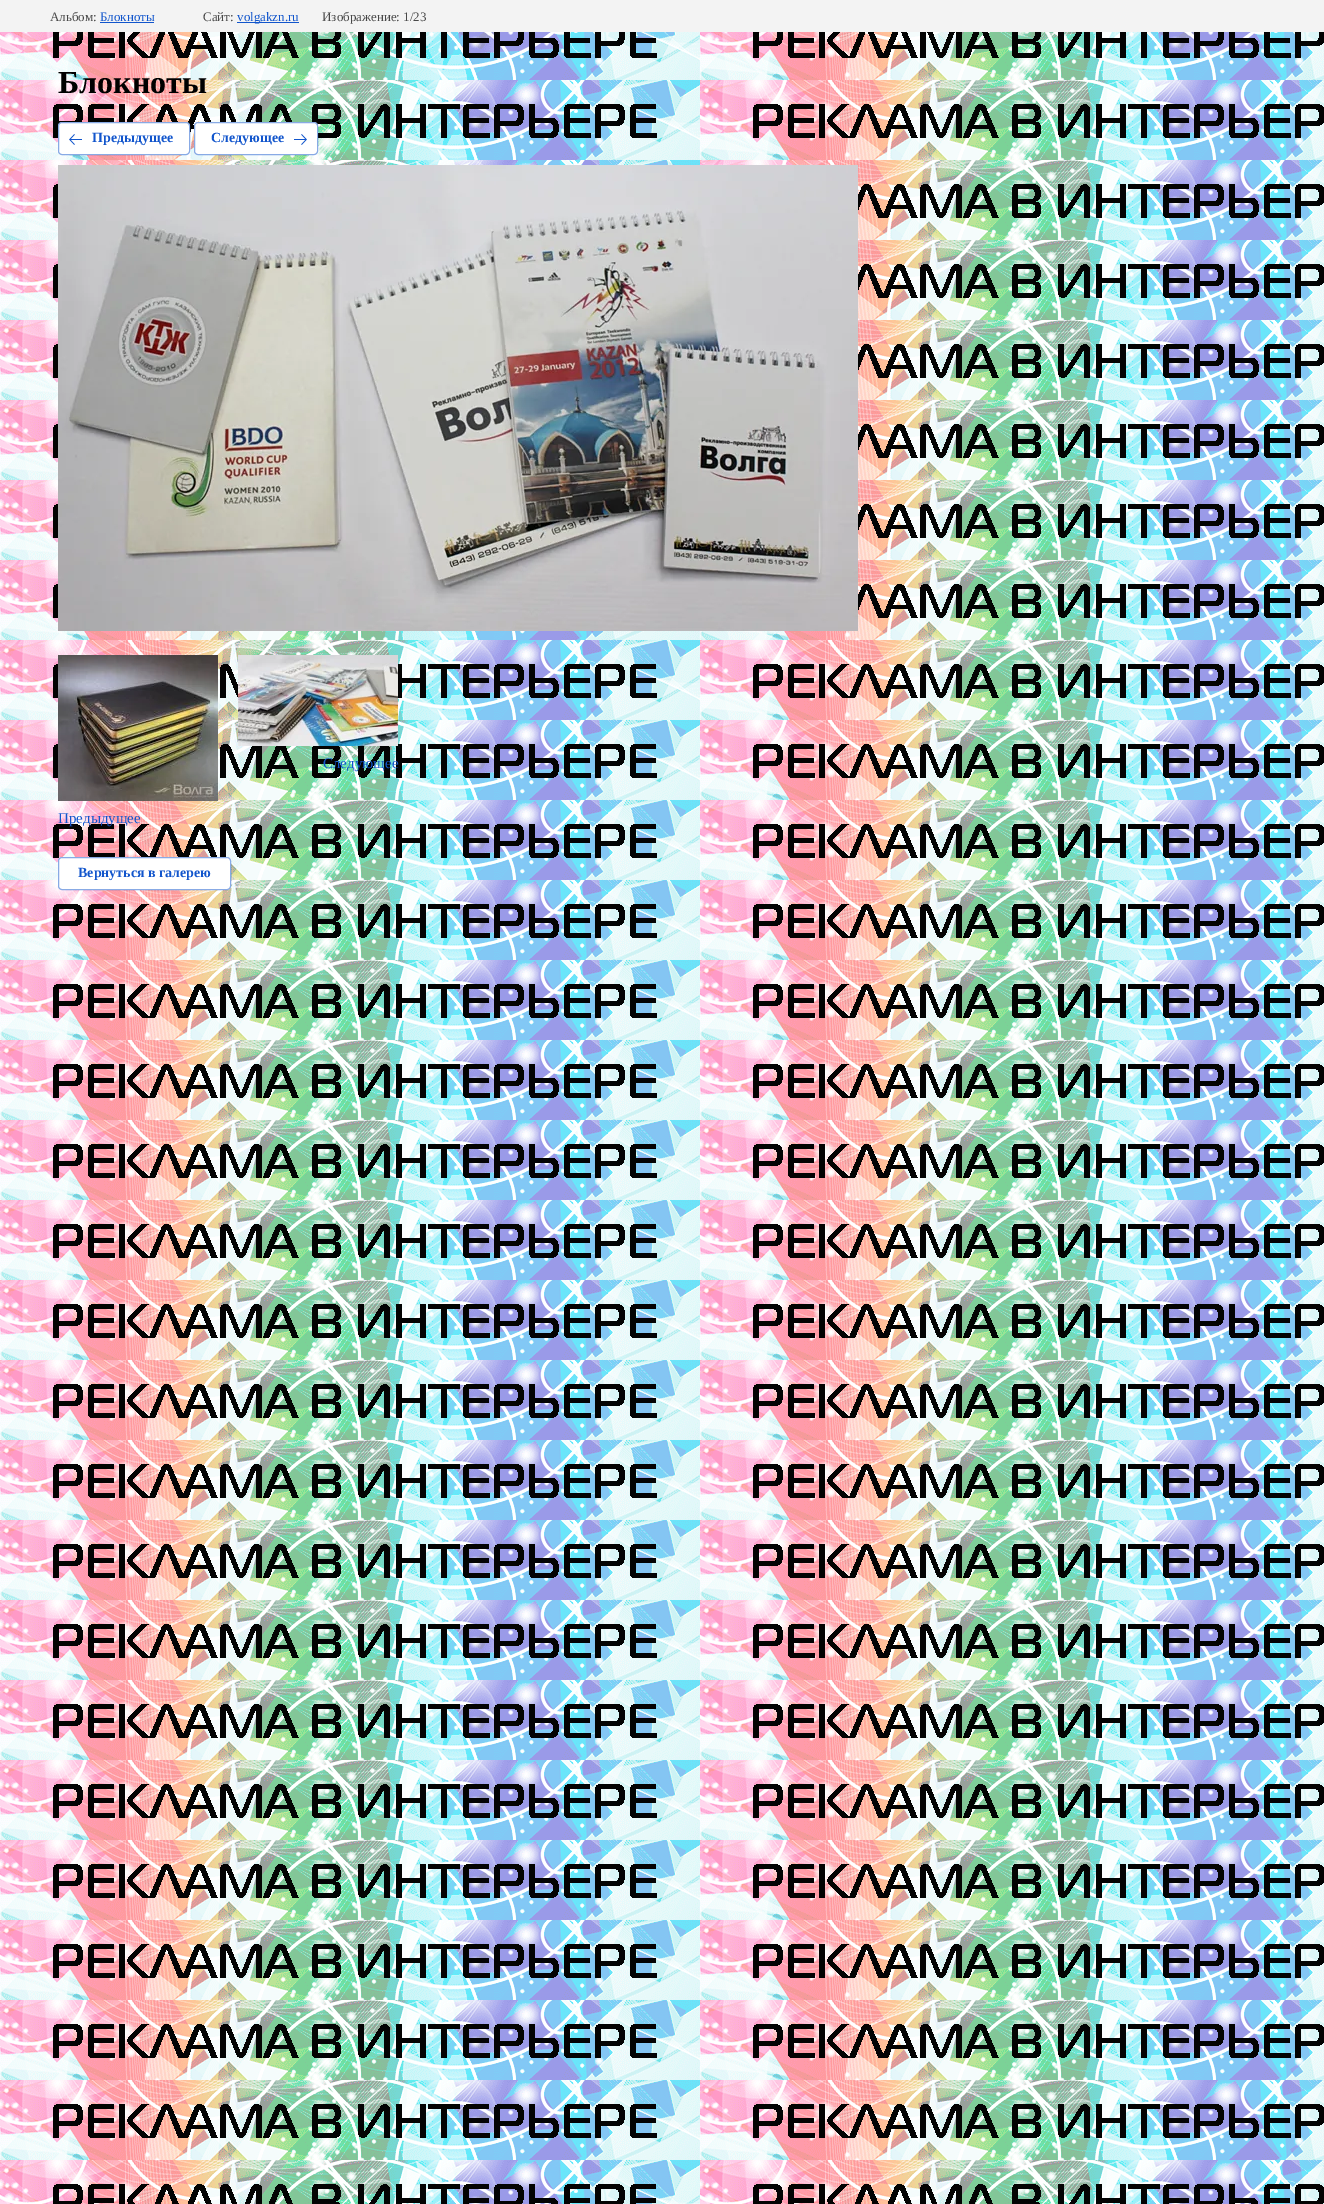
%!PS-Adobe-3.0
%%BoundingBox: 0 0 1324 2204
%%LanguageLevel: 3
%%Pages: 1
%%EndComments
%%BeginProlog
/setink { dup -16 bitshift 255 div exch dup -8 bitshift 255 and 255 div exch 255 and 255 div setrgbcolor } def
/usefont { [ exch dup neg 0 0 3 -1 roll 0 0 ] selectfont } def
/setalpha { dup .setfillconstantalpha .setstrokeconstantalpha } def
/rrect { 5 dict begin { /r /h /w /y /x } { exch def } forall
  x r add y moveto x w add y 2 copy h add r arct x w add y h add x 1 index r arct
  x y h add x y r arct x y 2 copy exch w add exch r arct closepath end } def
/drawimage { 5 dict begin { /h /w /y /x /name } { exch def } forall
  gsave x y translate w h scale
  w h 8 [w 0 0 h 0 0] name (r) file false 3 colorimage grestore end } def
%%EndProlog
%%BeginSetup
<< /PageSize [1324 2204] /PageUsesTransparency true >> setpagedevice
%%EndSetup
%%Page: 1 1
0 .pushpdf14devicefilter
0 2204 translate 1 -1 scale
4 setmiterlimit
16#FFFFFF setink
0 0 1324 2204 rectfill
(img1.raw) 0 32 1324 2172 drawimage
16#F3F3F3 setink
0 0 1324 32 rectfill
/LiberationSerif-Regular 13 usefont
16#484848 setink
50 21 moveto (Альбом:) show
16#1155CC setink
100 21 moveto (Блокноты) show
100 22 54 1 rectfill
16#484848 setink
203 21 moveto (Сайт:) show
16#1155CC setink
237 22 62 1 rectfill
237 21 moveto (volgakzn.ru) show
16#484848 setink
322 21 moveto (Изображение: 1/23) show
/LiberationSerif-Bold 32 usefont
16#000000 setink
58 93 moveto (Блокноты) show
16#FFFFFF setink
58 122 132 33 4 rrect fill
0.5 setalpha
16#1155CC setink
58.5 122.5 131 32 3.5 rrect stroke
1 setalpha
(img2.raw) 69 134 13 11 drawimage
/LiberationSerif-Bold 14 usefont
92 142 moveto (Предыдущее) show
16#FFFFFF setink
194 122 124 33 4 rrect fill
0.5 setalpha
16#1155CC setink
194.5 122.5 123 32 3.5 rrect stroke
1 setalpha
211 142 moveto (Следующее) show
(img3.raw) 294 134 13 11 drawimage
(img4.raw) 58 165 800 466 drawimage
(img5.raw) 238 655 160 91 drawimage
/LiberationSerif-Regular 15 usefont
323 768 moveto (Следующее) show
(img6.raw) 58 655 160 146 drawimage
58 823 moveto (Предыдущее) show
16#FFFFFF setink
58 857 173 33 4 rrect fill
0.5 setalpha
16#1155CC setink
58.5 857.5 172 32 3.5 rrect stroke
/LiberationSerif-Bold 14 usefont
1 setalpha
78 877 moveto (Вернуться в галерею) show
.poppdf14devicefilter showpage
%%EOF
